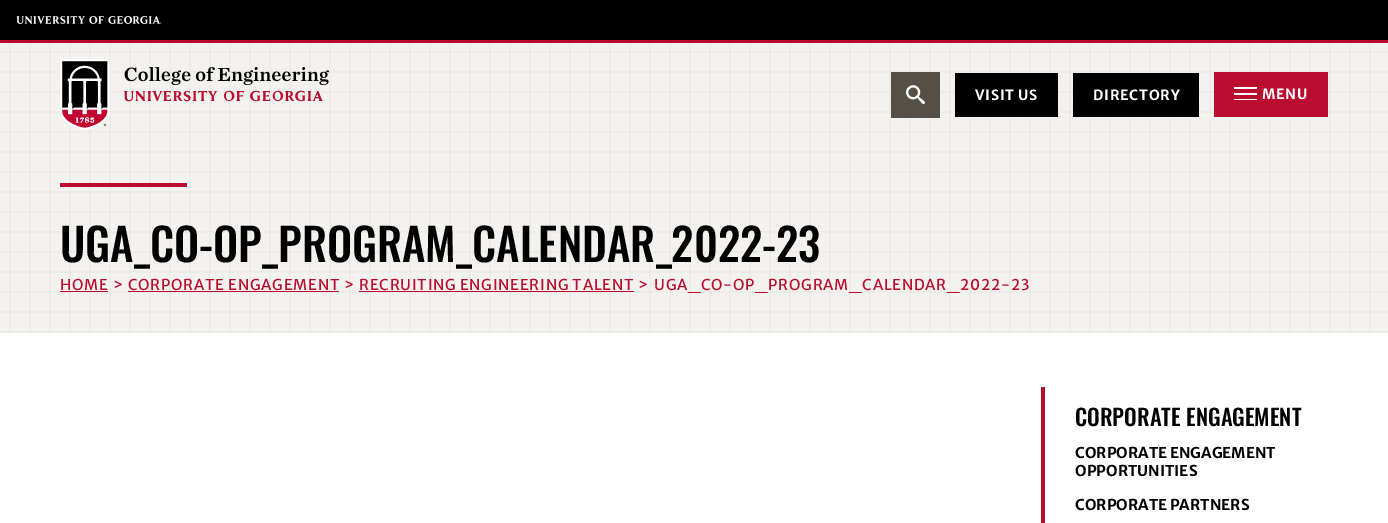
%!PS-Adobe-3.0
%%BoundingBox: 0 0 1388 523
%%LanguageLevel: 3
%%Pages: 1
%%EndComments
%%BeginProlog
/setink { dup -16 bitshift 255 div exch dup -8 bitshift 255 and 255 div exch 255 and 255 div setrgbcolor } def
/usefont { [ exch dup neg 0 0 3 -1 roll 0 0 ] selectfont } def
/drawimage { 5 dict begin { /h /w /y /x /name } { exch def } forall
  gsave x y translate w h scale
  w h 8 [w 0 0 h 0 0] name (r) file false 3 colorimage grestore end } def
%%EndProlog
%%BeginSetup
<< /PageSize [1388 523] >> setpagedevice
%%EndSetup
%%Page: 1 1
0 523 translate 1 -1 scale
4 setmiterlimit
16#FFFFFF setink
0 0 1388 523 rectfill
16#000000 setink
0 0 1388 40 rectfill
16#BA0C2F setink
0 40 1388 3 rectfill
(img1.raw) 16 16 146 8 drawimage
16#F3F2EE setink
0 43 1388 290 rectfill
(img4.raw) 0 43 1388 290 drawimage
(img2.raw) 60 59 269 71 drawimage
16#554F47 setink
891 72 49 46 rectfill
(img3.raw) 906 85 19 20 drawimage
16#000000 setink
955 73 103 44 rectfill
/MerriweatherSans-Bold 14 usefont
16#FFFFFF setink
975 100 moveto 0.75 0 (VISIT US) ashow
16#000000 setink
1073 73 126 44 rectfill
16#FFFFFF setink
1093 100 moveto 0.75 0 (DIRECTORY) ashow
[
    [1214 72 114 45 16#BA0C2F]
    [1234 87 23 2 16#FFFFFF]
    [1234 93 23 2 16#FFFFFF]
    [1234 99 23 1 16#FFFFFF]
] { aload pop setink rectfill } forall
1262 99 moveto 0.75 0 (MENU) ashow
16#BA0C2F setink
60 183 127 4 rectfill
/Oswald-Medium 44.8 usefont
16#000000 setink
60 262 moveto (UGA_CO-OP_PROGRAM_CALENDAR_2022-23) show
/MerriweatherSans-Regular 14.95 usefont
16#BA0C2F setink
60 290 moveto 0.75 0 (HOME) ashow
60 291 48 1 rectfill
113 290 moveto 0.75 0 (>) ashow
128 290 moveto 0.75 0 (CORPORATE ENGAGEMENT) ashow
128 291 211 1 rectfill
344 290 moveto 0.75 0 (>) ashow
359 290 moveto 0.75 0 (RECRUITING ENGINEERING TALENT) ashow
359 291 275 1 rectfill
638 290 moveto 0.75 0 (>) ashow
654 290 moveto 0.75 0 (UGA_CO-OP_PROGRAM_CALENDAR_2022-23) ashow
1041 387 4 136 rectfill
/Oswald-Medium 22.5 usefont
16#000000 setink
1075 426 moveto (CORPORATE ENGAGEMENT) show
/MerriweatherSans-Bold 14.95 usefont
[
    [(CORPORATE ENGAGEMENT) 1075 458]
    [(OPPORTUNITIES) 1075 476]
    [(CORPORATE PARTNERS) 1075 510]
] { aload pop moveto show } forall
showpage
%%EOF
